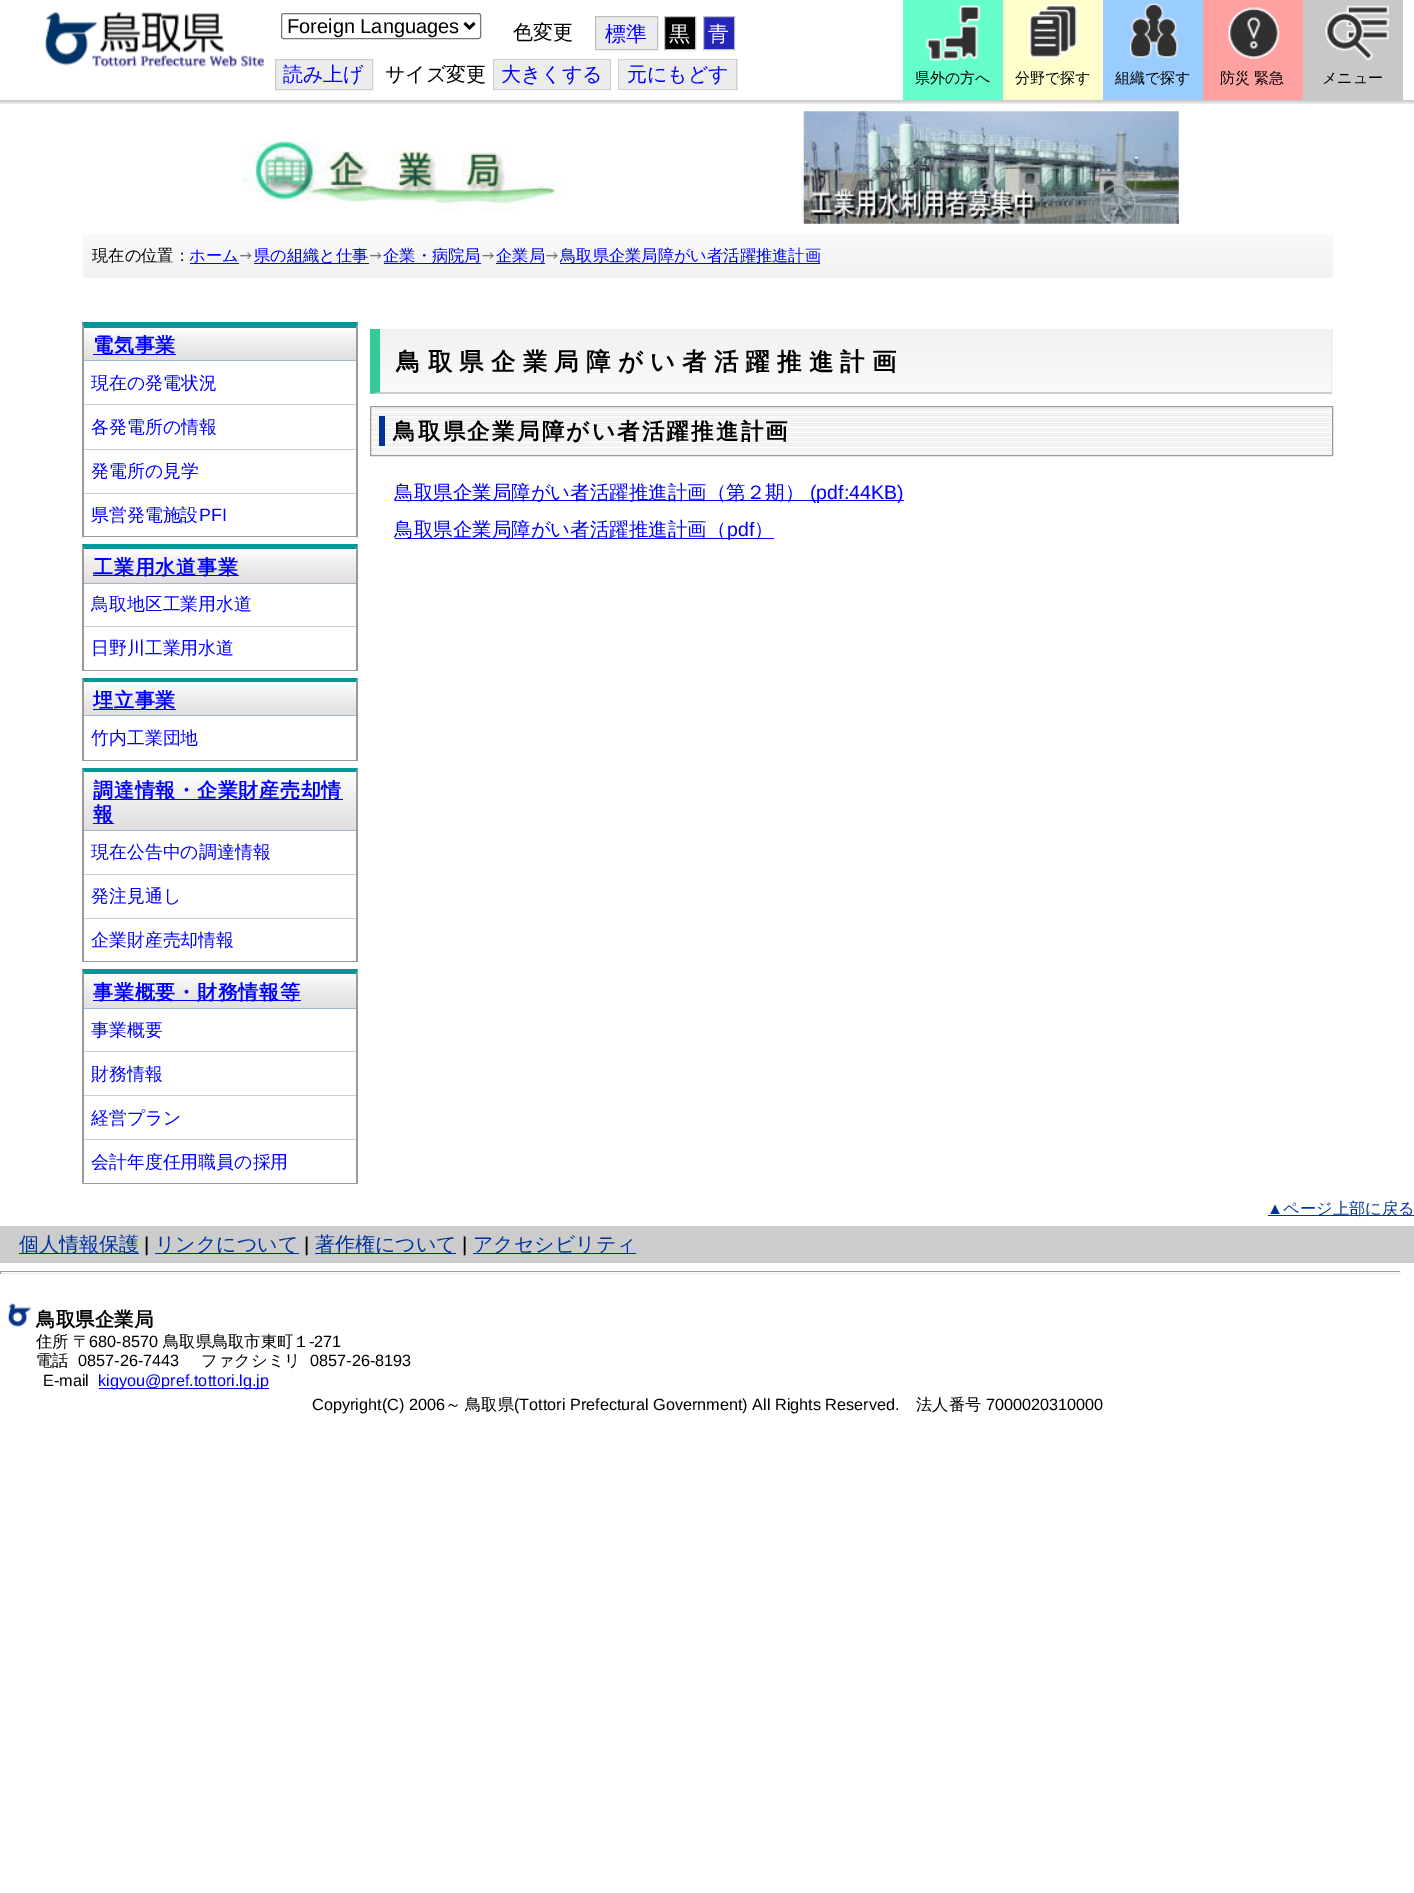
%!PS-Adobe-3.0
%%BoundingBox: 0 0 1414 1893
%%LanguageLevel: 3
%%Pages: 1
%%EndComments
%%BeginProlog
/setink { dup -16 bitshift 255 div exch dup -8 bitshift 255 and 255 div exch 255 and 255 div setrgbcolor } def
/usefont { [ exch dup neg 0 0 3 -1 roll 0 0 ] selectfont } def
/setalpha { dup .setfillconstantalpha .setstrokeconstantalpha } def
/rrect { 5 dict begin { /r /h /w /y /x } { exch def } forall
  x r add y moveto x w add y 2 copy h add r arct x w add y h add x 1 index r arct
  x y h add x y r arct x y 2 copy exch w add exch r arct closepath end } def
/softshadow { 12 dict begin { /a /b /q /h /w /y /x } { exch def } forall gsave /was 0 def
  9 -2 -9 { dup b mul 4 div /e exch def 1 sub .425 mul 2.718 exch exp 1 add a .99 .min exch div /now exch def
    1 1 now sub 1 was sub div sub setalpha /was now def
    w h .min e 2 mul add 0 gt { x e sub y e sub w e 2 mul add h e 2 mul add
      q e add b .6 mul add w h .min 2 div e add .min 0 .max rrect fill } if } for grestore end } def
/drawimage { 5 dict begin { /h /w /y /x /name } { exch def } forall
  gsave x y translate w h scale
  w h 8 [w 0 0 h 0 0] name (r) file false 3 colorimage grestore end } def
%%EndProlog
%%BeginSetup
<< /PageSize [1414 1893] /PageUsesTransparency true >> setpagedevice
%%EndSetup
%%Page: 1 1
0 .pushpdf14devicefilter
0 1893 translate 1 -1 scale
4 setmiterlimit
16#FFFFFF setink
0 0 1414 1893 rectfill
gsave
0 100 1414 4 rectclip
16#000000 setink
-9 1 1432 100 0 3 0.1 softshadow
-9 1 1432 100 0 3 0.1 softshadow
-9 1 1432 100 0 3 0.1 softshadow
-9 1 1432 100 0 3 0.1 softshadow
grestore
(img1.raw) 45 12 219 55 drawimage
16#767676 setink
281.5 13.5 199 25 2 rrect stroke
16#000000 setink
2.5 setlinewidth
464.5 23 moveto 469.5 28 lineto 474.5 23 lineto stroke
/LiberationSans-Regular 20 usefont
287 33 moveto (Foreign Languages) show
/WenQuanYiZenHei-Medium 20 usefont
513 39 moveto (色変更) show
16#ECECEC setink
595.5 16.5 moveto 657.5 16.5 lineto 657.5 49.5 lineto 595.5 49.5 lineto closepath gsave fill grestore
16#BFBFBF setink
1 setlinewidth
stroke
/WenQuanYiZenHei-Medium 21 usefont
16#0000FF setink
605 41 moveto (標準) show
16#000000 setink
664.5 16.5 moveto 695.5 16.5 lineto 695.5 49.5 lineto 664.5 49.5 lineto closepath gsave fill grestore
16#BFBFBF setink
stroke
16#FFFFFF setink
669 41 moveto (黒) show
16#2525B8 setink
703.5 16.5 moveto 734.5 16.5 lineto 734.5 49.5 lineto 703.5 49.5 lineto closepath gsave fill grestore
16#BFBFBF setink
stroke
16#FFFFFF setink
708 41 moveto (青) show
16#ECECEC setink
275.5 59.5 moveto 372.5 59.5 lineto 372.5 89.5 lineto 275.5 89.5 lineto closepath gsave fill grestore
16#CECECE setink
stroke
/WenQuanYiZenHei-Medium 20 usefont
16#0000FF setink
283 81 moveto (読み上げ) show
16#000000 setink
385 81 moveto (サイズ変更) show
16#ECECEC setink
494 60 116 29 rectfill
16#0000FF setink
501 81 moveto (大きくする) show
[
    [493 59 118 1 16#CECECE]
    [493 89 28 1 16#CECECE]
    [493 59 1 31 16#CECECE]
    [610 59 1 31 16#CECECE]
    [521 89 90 1 16#CECECE]
    [619 60 119 29 16#ECECEC]
] { aload pop setink rectfill } forall
16#0000FF setink
627 81 moveto (元にもどす) show
[
    [618 59 120 1 16#CECECE]
    [618 89 28 1 16#CECECE]
    [618 59 1 31 16#CECECE]
    [736 59 1 31 16#CECECE]
    [646 89 92 1 16#CECECE]
    [903 0 100 100 16#66FFCC]
] { aload pop setink rectfill } forall
(img2.raw) 926 4 55 58 drawimage
/WenQuanYiZenHei-Medium 15 usefont
16#000000 setink
915 83 moveto (県外の方へ) show
16#FFFFCC setink
1003 0 100 100 rectfill
(img3.raw) 1028 4 50 55 drawimage
16#000000 setink
1015 83 moveto (分野で探す) show
16#99CCFF setink
1103 0 100 100 rectfill
(img4.raw) 1129 2 50 56 drawimage
16#000000 setink
1115 83 moveto (組織で探す) show
16#FFA1A1 setink
1203 0 100 100 rectfill
(img5.raw) 1227 7 53 52 drawimage
16#000000 setink
1220 83 moveto (防災 緊急) show
16#C8C8CB setink
1303 0 100 100 rectfill
(img6.raw) 1325 5 64 56 drawimage
16#000000 setink
1322 83 moveto (メニュー) show
(img7.raw) 241 111 938 113 drawimage
gsave 83 234 moveto 1333 234 lineto 1333 278 lineto 83 278 lineto closepath clip newpath
<< /ShadingType 2 /ColorSpace /DeviceRGB /Coords [708 234 708 278] /Extend [true true] /Function << /FunctionType 2 /Domain [0 1] /C0 [0.98 0.98 0.98] /C1 [0.945 0.945 0.945] /N 1 >> >> shfill grestore
/WenQuanYiZenHei-Medium 16.25 usefont
92 261 moveto (現在の位置：) show
16#0000FF setink
189 261 moveto (ホーム) show
190 263 49 1 rectfill
(img8.raw) 239 252 13 7 drawimage
254 263 115 1 rectfill
254 261 moveto (県の組織と仕事) show
(img9.raw) 369 252 13 7 drawimage
384 263 97 1 rectfill
383 261 moveto (企業・病院局) show
(img10.raw) 482 252 12 7 drawimage
496 261 moveto (企業局) show
496 263 49 1 rectfill
(img11.raw) 546 252 12 7 drawimage
560 263 260 1 rectfill
560 261 moveto (鳥取県企業局障がい者活躍推進計画) show
16#009999 setink
82 322 moveto 358 322 lineto 356 328 lineto 84 328 lineto closepath fill
16#999999 setink
358 322 moveto 358 538 lineto 356 536 lineto 356 328 lineto closepath fill
83 536 275 1 rectfill
82 538 moveto 82 322 lineto 84 328 lineto 84 536 lineto closepath fill
gsave 84 329 moveto 356 329 lineto 356 360 lineto 84 360 lineto closepath clip newpath
<< /ShadingType 2 /ColorSpace /DeviceRGB /Coords [220 328 220 360] /Extend [true true] /Function << /FunctionType 3 /Domain [0 1] /Functions [<< /FunctionType 2 /Domain [0 1] /C0 [0.996 0.996 0.996] /C1 [0.933 0.925 0.929] /N 1 >> << /FunctionType 2 /Domain [0 1] /C0 [0.933 0.925 0.929] /C1 [0.882 0.875 0.878] /N 1 >>] /Bounds [0.5] /Encode [0 1 0 1] >> >> shfill grestore
16#9FB7D4 setink
84 360 272 1 rectfill
16#0000FF setink
93 354 83 1 rectfill
/WenQuanYiZenHei-Bold 20 usefont
93 352 moveto 0.75 0 (電気事業) ashow
16#CCCCCC setink
84 404 272 1 rectfill
/WenQuanYiZenHei-Medium 17.9 usefont
16#0000FF setink
91 389 moveto (現在の発電状況) show
16#CCCCCC setink
84 449 272 1 rectfill
16#0000FF setink
91 433 moveto (各発電所の情報) show
16#CCCCCC setink
84 493 272 1 rectfill
16#0000FF setink
91 477 moveto (発電所の見学) show
91 521 moveto (県営発電施設) show
/LiberationSans-Regular 17.9 usefont
199 521 moveto (PFI) show
16#009999 setink
82 544 moveto 358 544 lineto 356 549 lineto 84 549 lineto closepath fill
16#999999 setink
358 544 moveto 358 671 lineto 356 670 lineto 356 549 lineto closepath fill
83 670 275 1 rectfill
82 671 moveto 82 544 lineto 84 549 lineto 84 670 lineto closepath fill
gsave 84 550 moveto 356 550 lineto 356 583 lineto 84 583 lineto closepath clip newpath
<< /ShadingType 2 /ColorSpace /DeviceRGB /Coords [220 549 220 583] /Extend [true true] /Function << /FunctionType 3 /Domain [0 1] /Functions [<< /FunctionType 2 /Domain [0 1] /C0 [0.996 0.996 0.996] /C1 [0.933 0.925 0.929] /N 1 >> << /FunctionType 2 /Domain [0 1] /C0 [0.933 0.925 0.929] /C1 [0.882 0.875 0.878] /N 1 >>] /Bounds [0.5] /Encode [0 1 0 1] >> >> shfill grestore
16#9FB7D4 setink
84 583 272 1 rectfill
16#0000FF setink
93 575 146 1 rectfill
/WenQuanYiZenHei-Bold 20 usefont
93 574 moveto 0.75 0 (工業用水道事業) ashow
16#CCCCCC setink
84 626 272 1 rectfill
/WenQuanYiZenHei-Medium 17.9 usefont
16#0000FF setink
91 610 moveto (鳥取地区工業用水道) show
91 654 moveto (日野川工業用水道) show
16#009999 setink
82 678 moveto 358 678 lineto 356 682 lineto 84 682 lineto closepath fill
16#999999 setink
358 678 moveto 358 761 lineto 356 760 lineto 356 682 lineto closepath fill
83 760 275 1 rectfill
82 761 moveto 82 678 lineto 84 682 lineto 84 760 lineto closepath fill
gsave 84 684 moveto 356 684 lineto 356 715 lineto 84 715 lineto closepath clip newpath
<< /ShadingType 2 /ColorSpace /DeviceRGB /Coords [220 683 220 715] /Extend [true true] /Function << /FunctionType 3 /Domain [0 1] /Functions [<< /FunctionType 2 /Domain [0 1] /C0 [0.996 0.996 0.996] /C1 [0.933 0.925 0.929] /N 1 >> << /FunctionType 2 /Domain [0 1] /C0 [0.933 0.925 0.929] /C1 [0.882 0.875 0.878] /N 1 >>] /Bounds [0.5] /Encode [0 1 0 1] >> >> shfill grestore
16#9FB7D4 setink
84 715 272 1 rectfill
16#0000FF setink
93 709 83 1 rectfill
/WenQuanYiZenHei-Bold 20 usefont
93 707 moveto 0.75 0 (埋立事業) ashow
/WenQuanYiZenHei-Medium 17.9 usefont
91 744 moveto (竹内工業団地) show
16#009999 setink
82 768 moveto 358 768 lineto 356 772 lineto 84 772 lineto closepath fill
16#999999 setink
358 768 moveto 358 962 lineto 356 961 lineto 356 772 lineto closepath fill
83 961 275 1 rectfill
82 962 moveto 82 768 lineto 84 772 lineto 84 961 lineto closepath fill
gsave 84 775 moveto 356 775 lineto 356 830 lineto 84 830 lineto closepath clip newpath
<< /ShadingType 2 /ColorSpace /DeviceRGB /Coords [220 773 220 830] /Extend [true true] /Function << /FunctionType 3 /Domain [0 1] /Functions [<< /FunctionType 2 /Domain [0 1] /C0 [0.996 0.996 0.996] /C1 [0.933 0.925 0.929] /N 1 >> << /FunctionType 2 /Domain [0 1] /C0 [0.933 0.925 0.929] /C1 [0.882 0.875 0.878] /N 1 >>] /Bounds [0.5] /Encode [0 1 0 1] >> >> shfill grestore
16#9FB7D4 setink
84 830 272 1 rectfill
16#0000FF setink
93 799 250 1 rectfill
/WenQuanYiZenHei-Bold 20 usefont
93 797 moveto 0.75 0 (調達情報・企業財産売却情) ashow
93 823 21 1 rectfill
93 821 moveto 0.75 0 (報) ashow
16#CCCCCC setink
84 874 272 1 rectfill
/WenQuanYiZenHei-Medium 17.9 usefont
16#0000FF setink
91 858 moveto (現在公告中の調達情報) show
16#CCCCCC setink
84 918 272 1 rectfill
16#0000FF setink
91 902 moveto (発注見通し) show
91 946 moveto (企業財産売却情報) show
16#009999 setink
82 969 moveto 358 969 lineto 356 974 lineto 84 974 lineto closepath fill
16#999999 setink
358 969 moveto 358 1184 lineto 356 1182 lineto 356 974 lineto closepath fill
83 1183 275 1 rectfill
82 1184 moveto 82 969 lineto 84 974 lineto 84 1182 lineto closepath fill
gsave 84 975 moveto 356 975 lineto 356 1008 lineto 84 1008 lineto closepath clip newpath
<< /ShadingType 2 /ColorSpace /DeviceRGB /Coords [220 974 220 1008] /Extend [true true] /Function << /FunctionType 3 /Domain [0 1] /Functions [<< /FunctionType 2 /Domain [0 1] /C0 [0.996 0.996 0.996] /C1 [0.933 0.925 0.929] /N 1 >> << /FunctionType 2 /Domain [0 1] /C0 [0.933 0.925 0.929] /C1 [0.882 0.875 0.878] /N 1 >>] /Bounds [0.5] /Encode [0 1 0 1] >> >> shfill grestore
16#9FB7D4 setink
84 1008 272 1 rectfill
16#0000FF setink
93 1000 208 1 rectfill
/WenQuanYiZenHei-Bold 20 usefont
93 999 moveto 0.75 0 (事業概要・財務情報等) ashow
16#CCCCCC setink
84 1051 272 1 rectfill
/WenQuanYiZenHei-Medium 17.9 usefont
16#0000FF setink
91 1036 moveto (事業概要) show
16#CCCCCC setink
84 1095 272 1 rectfill
16#0000FF setink
91 1080 moveto (財務情報) show
16#CCCCCC setink
84 1139 272 1 rectfill
16#0000FF setink
91 1124 moveto (経営プラン) show
91 1168 moveto (会計年度任用職員の採用) show
gsave 375 329 moveto 1333 329 lineto 1333 393 lineto 375 393 lineto closepath clip newpath
<< /ShadingType 2 /ColorSpace /DeviceRGB /Coords [856 329 856 393] /Extend [true true] /Function << /FunctionType 2 /Domain [0 1] /C0 [0.945 0.945 0.945] /C1 [0.98 0.98 0.98] /N 1 >> >> shfill grestore
gsave 370 393 moveto 1333 393 lineto 1333 394 lineto 370 394 lineto closepath clip newpath
<< /ShadingType 2 /ColorSpace /DeviceRGB /Coords [856 392 856 456] /Extend [true true] /Function << /FunctionType 2 /Domain [0 1] /C0 [0.945 0.945 0.945] /C1 [0.98 0.98 0.98] /N 1 >> >> shfill grestore
16#EEEEEE setink
1331 329 1 65 rectfill
16#CCCCCC setink
1332 394 moveto 370 394 lineto 380 392 lineto 1331 392 lineto closepath fill
16#33CC99 setink
370 394 moveto 370 329 lineto 380 329 lineto 380 392 lineto closepath fill
/WenQuanYiZenHei-Bold 24.4 usefont
16#000000 setink
396 370 moveto 7.25 0 (鳥取県企業局障がい者活躍推進計画) ashow
(img12.raw) 371 408 961 47 drawimage
16#999999 setink
370.5 406.5 962 49 rectstroke
16#003399 setink
379 416 6 30 rectfill
/WenQuanYiZenHei-Bold 22.5 usefont
16#000000 setink
393 439 moveto 2.25 0 (鳥取県企業局障がい者活躍推進計画) ashow
16#0000FF setink
395 500 509 1 rectfill
/WenQuanYiZenHei-Medium 19.5 usefont
394 499 moveto (鳥取県企業局障がい者活躍推進計画（第２期）) show
/LiberationSans-Regular 19.5 usefont
810 499 moveto (\(pdf:44KB\)) show
395 538 379 1 rectfill
/WenQuanYiZenHei-Medium 19.5 usefont
394 536 moveto (鳥取県企業局障がい者活躍推進計画（) show
/LiberationSans-Regular 19.5 usefont
727 536 moveto (pdf) show
/WenQuanYiZenHei-Medium 19.5 usefont
754 536 moveto (）) show
/LiberationSans-Regular 16.25 usefont
16#003399 setink
1267 1214 moveto (▲) show
1268 1215 146 1 rectfill
/WenQuanYiZenHei-Medium 16.25 usefont
1283 1214 moveto (ページ上部に戻る) show
16#CCCCCC setink
0 1226 1414 37 rectfill
16#003399 setink
19 1253 120 1 rectfill
/WenQuanYiZenHei-Medium 20 usefont
19 1251 moveto (個人情報保護) show
/LiberationSans-Regular 20 usefont
16#000000 setink
144 1251 moveto (|) show
16#003399 setink
155 1253 144 1 rectfill
/WenQuanYiZenHei-Medium 20 usefont
155 1251 moveto (リンクについて) show
/LiberationSans-Regular 20 usefont
16#000000 setink
304 1251 moveto (|) show
16#003399 setink
315 1253 141 1 rectfill
/WenQuanYiZenHei-Medium 20 usefont
315 1251 moveto (著作権について) show
/LiberationSans-Regular 20 usefont
16#000000 setink
462 1251 moveto (|) show
16#003399 setink
473 1253 163 1 rectfill
/WenQuanYiZenHei-Medium 20 usefont
473 1251 moveto (アクセシビリティ) show
[
    [0 1271 1401 1 16#9F9F9F]
    [1400 1271 1 3 16#EEEEEE]
    [0 1273 1401 1 16#EEEEEE]
    [0 1271 1 3 16#9F9F9F]
] { aload pop setink rectfill } forall
(img13.raw) 8 1303 24 24 drawimage
/WenQuanYiZenHei-Bold 19.5 usefont
16#000000 setink
36 1326 moveto (鳥取県企業局) show
/WenQuanYiZenHei-Medium 16.25 usefont
36 1347 moveto (住所 〒) show
/LiberationSans-Regular 16.25 usefont
89 1347 moveto (680-8570) show
/WenQuanYiZenHei-Medium 16.25 usefont
163 1347 moveto (鳥取県鳥取市東町１) show
/LiberationSans-Regular 16.25 usefont
309 1347 moveto (-271) show
/WenQuanYiZenHei-Medium 16.25 usefont
36 1366 moveto (電話) show
/LiberationSans-Regular 16.25 usefont
78 1366 moveto (0857-26-7443) show
/WenQuanYiZenHei-Medium 16.25 usefont
201 1366 moveto (ファクシミリ) show
/LiberationSans-Regular 16.25 usefont
310 1366 moveto (0857-26-8193) show
43 1386 moveto (E-mail) show
16#0000FF setink
99 1388 170 1 rectfill
98 1386 moveto (kigyou@pref.tottori.lg.jp) show
16#000000 setink
312 1410 moveto (Copyright\(C\) 2006) show
/WenQuanYiZenHei-Medium 16.25 usefont
445 1410 moveto (～) show
465 1410 moveto (鳥取県) show
/LiberationSans-Regular 16.25 usefont
514 1410 moveto (\(Tottori Prefectural Government\) All Rights Reserved.) show
/WenQuanYiZenHei-Medium 16.25 usefont
916 1410 moveto (法人番号) show
/LiberationSans-Regular 16.25 usefont
986 1410 moveto (7000020310000) show
.poppdf14devicefilter showpage
%%EOF
